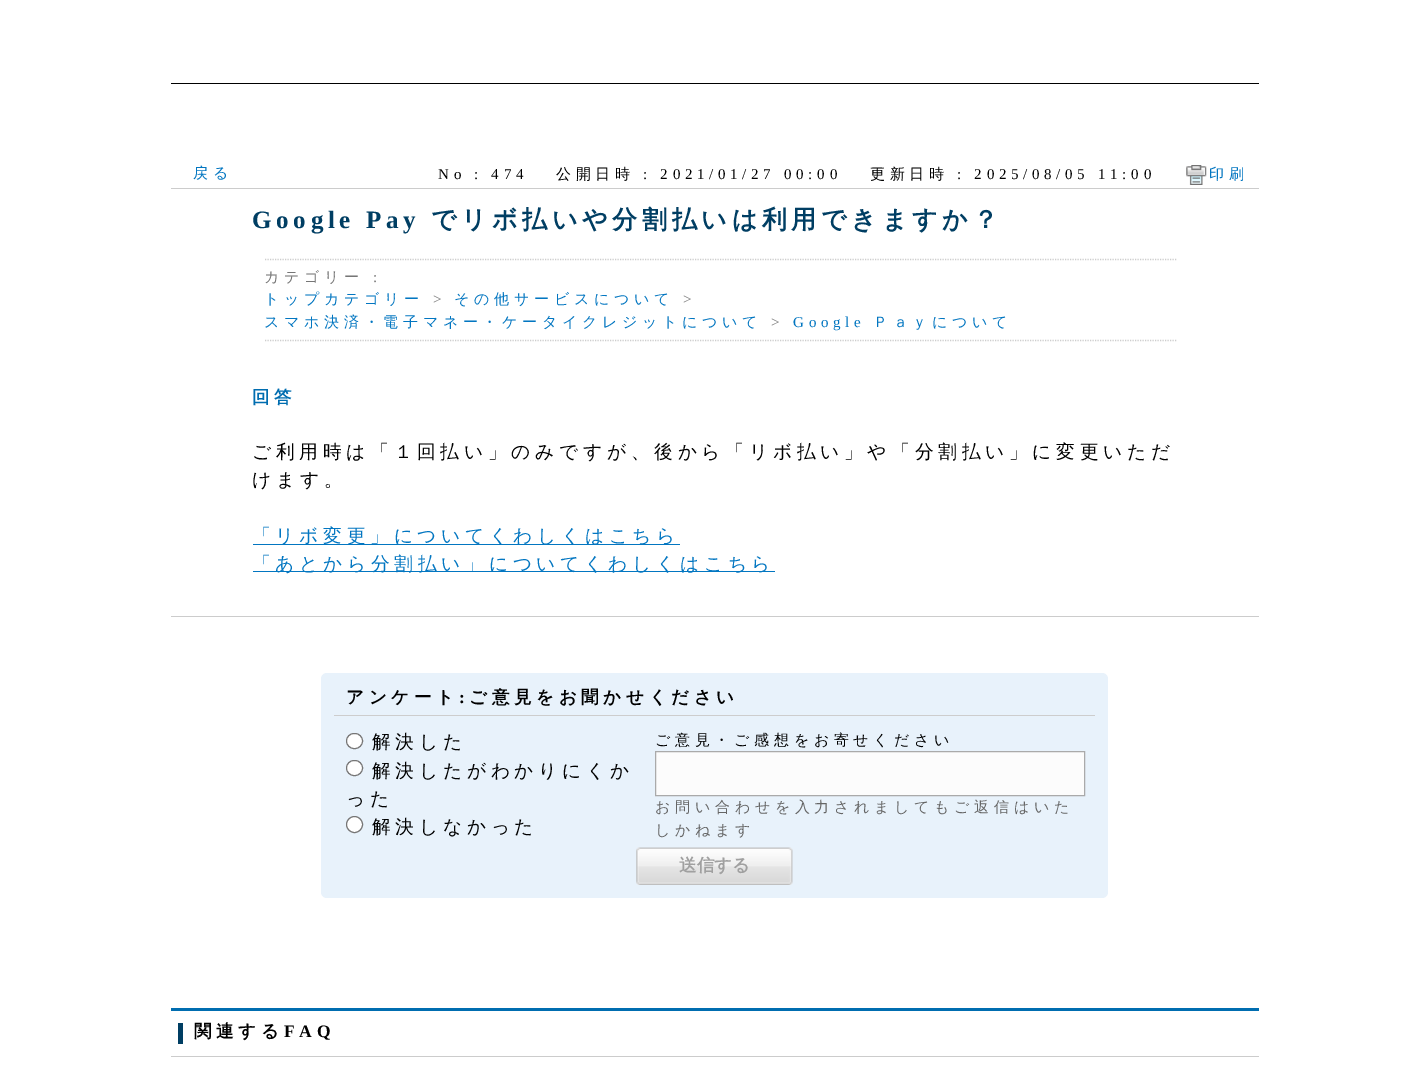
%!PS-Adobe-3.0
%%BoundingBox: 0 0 1428 1075
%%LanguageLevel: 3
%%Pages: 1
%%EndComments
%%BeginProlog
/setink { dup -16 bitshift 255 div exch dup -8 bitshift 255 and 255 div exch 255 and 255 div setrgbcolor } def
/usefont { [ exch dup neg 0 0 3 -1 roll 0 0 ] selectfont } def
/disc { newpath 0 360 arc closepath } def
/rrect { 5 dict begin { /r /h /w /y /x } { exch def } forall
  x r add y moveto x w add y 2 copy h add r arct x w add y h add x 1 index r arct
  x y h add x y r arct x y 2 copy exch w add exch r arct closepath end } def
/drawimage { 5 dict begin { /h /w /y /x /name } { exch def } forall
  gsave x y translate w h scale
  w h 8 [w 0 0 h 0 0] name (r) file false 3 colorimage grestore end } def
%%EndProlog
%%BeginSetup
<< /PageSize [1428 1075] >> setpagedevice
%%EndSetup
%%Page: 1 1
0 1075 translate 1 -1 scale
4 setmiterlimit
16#FFFFFF setink
0 0 1428 1075 rectfill
16#000000 setink
171 83 1088 1 rectfill
16#CCCCCC setink
171 188 1088 1 rectfill
/WenQuanYiZenHei-Medium 15 usefont
16#0276C1 setink
193 178 moveto 4.7 0 (戻る) ashow
/LiberationSerif-Regular 15 usefont
16#000000 setink
438 179 moveto 4.7 0 (No : 474) ashow
/WenQuanYiZenHei-Medium 15 usefont
556 179 moveto 4.7 0 (公開日時) ashow
/LiberationSerif-Regular 15 usefont
643 179 moveto 4.7 0 (: 2021/01/27 00:00) ashow
/WenQuanYiZenHei-Medium 15 usefont
870 179 moveto 4.7 0 (更新日時) ashow
/LiberationSerif-Regular 15 usefont
957 179 moveto 4.7 0 (: 2025/08/05 11:00) ashow
(img1.raw) 1186 165 21 20 drawimage
/WenQuanYiZenHei-Medium 15 usefont
16#0276C1 setink
1209 179 moveto 4.7 0 (印刷) ashow
/LiberationSerif-Bold 25 usefont
16#003E63 setink
252 228 moveto 4.7 0 (Google Pay) ashow
/WenQuanYiZenHei-Bold 25 usefont
431 228 moveto 4.7 0 (でリボ払いや分割払いは利用できますか？) ashow
16#CDCDCD setink
1.2 setlinewidth
[1.25 1.25] 0 setdash
265 259.5 moveto 1177.5 259.5 lineto stroke
265 340.5 moveto 1177.5 340.5 lineto stroke
/WenQuanYiZenHei-Medium 15 usefont
16#767676 setink
264 282 moveto 4.7 0 (カテゴリー) ashow
/LiberationSerif-Regular 15 usefont
373 282 moveto 4.7 0 (:) ashow
/WenQuanYiZenHei-Medium 15 usefont
16#0276C1 setink
264 304 moveto 4.7 0 (トップカテゴリー) ashow
/LiberationSerif-Regular 15 usefont
16#767676 setink
433 304 moveto 4.7 0 (>) ashow
/WenQuanYiZenHei-Medium 15 usefont
16#0276C1 setink
454 304 moveto 4.7 0 (その他サービスについて) ashow
/LiberationSerif-Regular 15 usefont
16#767676 setink
683 304 moveto 4.7 0 (>) ashow
/WenQuanYiZenHei-Medium 15 usefont
16#0276C1 setink
264 327 moveto 4.7 0 (スマホ決済・電子マネー・ケータイクレジットについて) ashow
/LiberationSerif-Regular 15 usefont
16#767676 setink
771 327 moveto 4.7 0 (>) ashow
16#0276C1 setink
793 327 moveto 4.7 0 (Google) ashow
/WenQuanYiZenHei-Medium 15 usefont
873 327 moveto 4.7 0 (Ｐａｙについて) ashow
/WenQuanYiZenHei-Bold 17.5 usefont
16#006DB0 setink
252 403 moveto 4.7 0 (回答) ashow
16#CCCCCC setink
171 616 1088 1 rectfill
/WenQuanYiZenHei-Medium 18.75 usefont
16#000000 setink
252 458 moveto 4.7 0 (ご利用時は「１回払い」のみですが、後から「リボ払い」や「分割払い」に変更いただ) ashow
252 486 moveto 4.7 0 (けます。) ashow
16#0276C1 setink
253 544 427 1 rectfill
252 542 moveto 4.7 0 (「リボ変更」についてくわしくはこちら) ashow
253 571 522 1 rectfill
252 570 moveto 4.7 0 (「あとから分割払い」についてくわしくはこちら) ashow
16#E8F2FB setink
321 673 787 225 6 rrect fill
16#CDCDCD setink
334 715 761 1 rectfill
/WenQuanYiZenHei-Bold 17.5 usefont
16#000000 setink
346 703 moveto 4.7 0 (アンケート) ashow
/LiberationSerif-Bold 17.5 usefont
459 703 moveto 4.7 0 (:) ashow
/WenQuanYiZenHei-Bold 17.5 usefont
469 703 moveto 4.7 0 (ご意見をお聞かせください) ashow
16#FFFFFF setink
346.5 733.5 16 15 7.5 rrect gsave fill grestore
16#767676 setink
1 setlinewidth
[] 0 setdash
stroke
/WenQuanYiZenHei-Medium 18.75 usefont
16#000000 setink
372 748 moveto 4.7 0 (解決した) ashow
16#FFFFFF setink
346.5 760.5 16 15 7.5 rrect gsave fill grestore
16#767676 setink
stroke
16#000000 setink
372 777 moveto 4.7 0 (解決したがわかりにくか) ashow
346 805 moveto 4.7 0 (った) ashow
16#FFFFFF setink
354.5 824.5 8 disc gsave fill grestore
16#767676 setink
stroke
16#000000 setink
372 833 moveto 4.7 0 (解決しなかった) ashow
/WenQuanYiZenHei-Medium 15 usefont
655 745 moveto 4.7 0 (ご意見・ご感想をお寄せください) ashow
16#FCFCFC setink
655.5 751.5 moveto 1084.5 751.5 lineto 1084.5 795.5 lineto 655.5 795.5 lineto closepath gsave fill grestore
16#AAAAAA setink
stroke
16#666666 setink
655 812 moveto 4.7 0 (お問い合わせを入力されましてもご返信はいた) ashow
655 835 moveto 4.7 0 (しかねます) ashow
(img2.raw) 636 847 157 38 drawimage
/WenQuanYiZenHei-Bold 17.5 usefont
16#A0A0A0 setink
679 871 moveto (送信する) show
[
    [171 1008 1088 3 16#006DB0]
    [171 1056 1088 1 16#CCCCCC]
    [178 1023 5 21 16#003E63]
] { aload pop setink rectfill } forall
16#000000 setink
194 1037 moveto 4.7 0 (関連する) ashow
/LiberationSerif-Bold 17.5 usefont
284 1037 moveto 4.7 0 (FAQ) ashow
showpage
%%EOF
